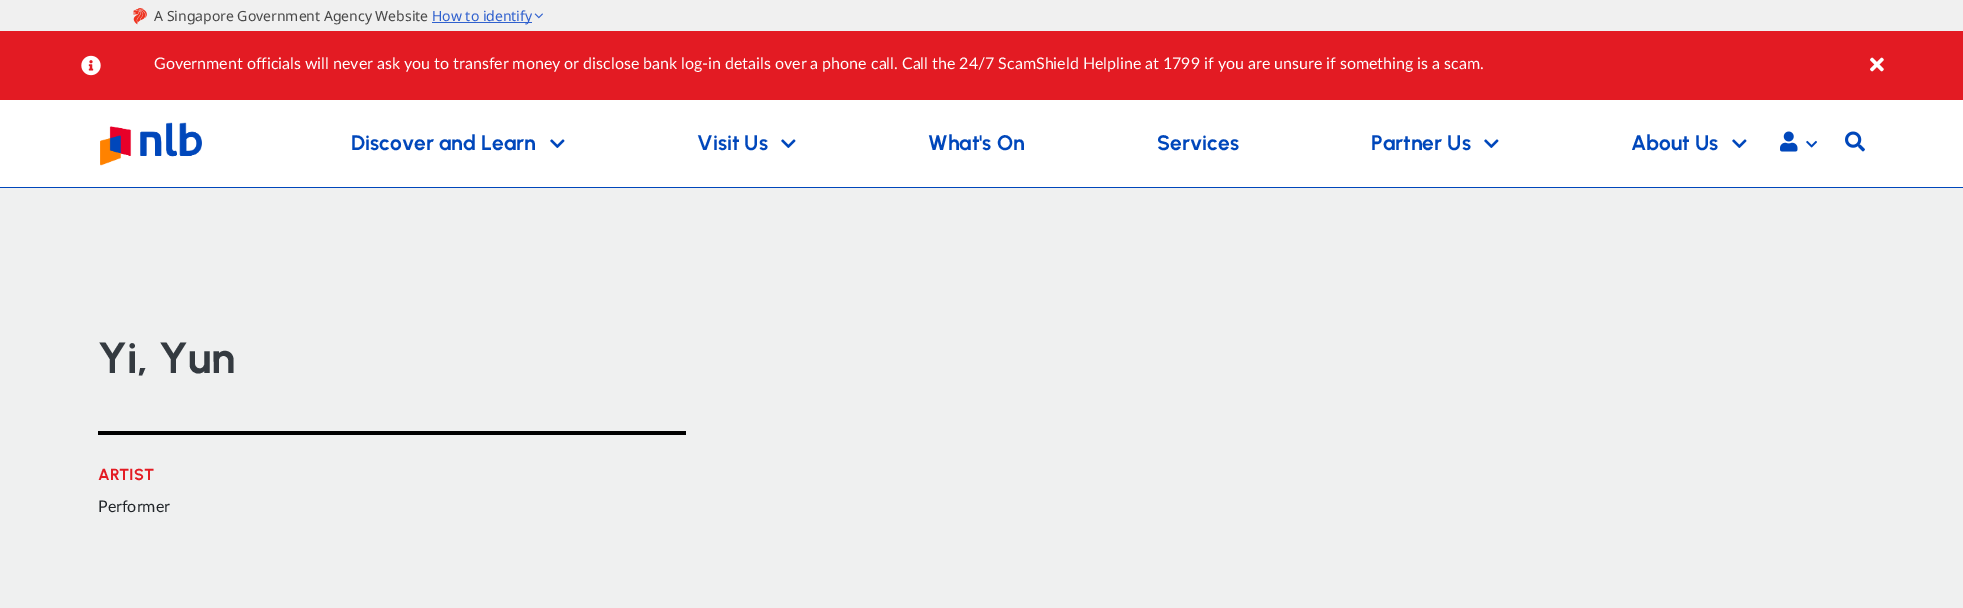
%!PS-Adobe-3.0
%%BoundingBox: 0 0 1963 608
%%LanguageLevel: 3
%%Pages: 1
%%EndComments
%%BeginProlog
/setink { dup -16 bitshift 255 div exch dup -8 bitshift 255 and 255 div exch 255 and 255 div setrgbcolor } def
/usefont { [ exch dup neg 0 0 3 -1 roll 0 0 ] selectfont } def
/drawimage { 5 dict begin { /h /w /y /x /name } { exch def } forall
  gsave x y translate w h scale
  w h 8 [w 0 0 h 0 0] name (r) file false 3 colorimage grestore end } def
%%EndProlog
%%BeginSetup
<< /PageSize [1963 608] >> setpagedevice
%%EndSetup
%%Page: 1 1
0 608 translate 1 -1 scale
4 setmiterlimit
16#FFFFFF setink
0 0 1963 608 rectfill
16#0047BB setink
0 187 1963 1 rectfill
16#F0F0F0 setink
0 0 1963 31 rectfill
(img1.raw) 133 8 14 17 drawimage
/NotoSans-Regular 14 usefont
16#474747 setink
154 21 moveto (A Singapore Government Agency Website) show
16#2F60CE setink
432 22 100 1 rectfill
432 21 moveto (How to identify) show
(img2.raw) 534 13 9 6 drawimage
16#E31B23 setink
0 31 1963 69 rectfill
(img3.raw) 81 55 20 21 drawimage
/Lato-Regular 16 usefont
16#FFFFFF setink
154 69 moveto (Government officials will never ask you to transfer money or disclose bank log-in details over a phone call. Call the 24/7 ScamShield Helpline at 1799 if you are unsure if something is a scam.) show
(img4.raw) 1870 57 14 15 drawimage
(img5.raw) 100 122 102 44 drawimage
/Urbanist-Bold 21 usefont
16#0047BB setink
351 150 moveto (Discover and Learn) show
(img6.raw) 550 139 15 9 drawimage
697 150 moveto (Visit Us) show
(img6.raw) 781 139 15 9 drawimage
[
    [(What's On) 928 150]
    [(Services) 1157 150]
    [(Partner Us) 1371 150]
] { aload pop moveto show } forall
(img6.raw) 1484 139 15 9 drawimage
1631 150 moveto (About Us) show
(img6.raw) 1732 139 15 9 drawimage
(img7.raw) 1780 131 18 21 drawimage
(img8.raw) 1806 140 11 8 drawimage
(img9.raw) 1845 131 20 21 drawimage
16#EFF0F0 setink
0 188 1963 420 rectfill
/Urbanist-Bold 43.5 usefont
16#343A40 setink
98 373 moveto (Yi, Yun) show
16#000000 setink
98 431 588 4 rectfill
/Urbanist-Bold 16 usefont
16#E31B23 setink
98 480 moveto (ARTIST) show
/Lato-Regular 16 usefont
16#212529 setink
98 512 moveto (Performer) show
showpage
%%EOF
